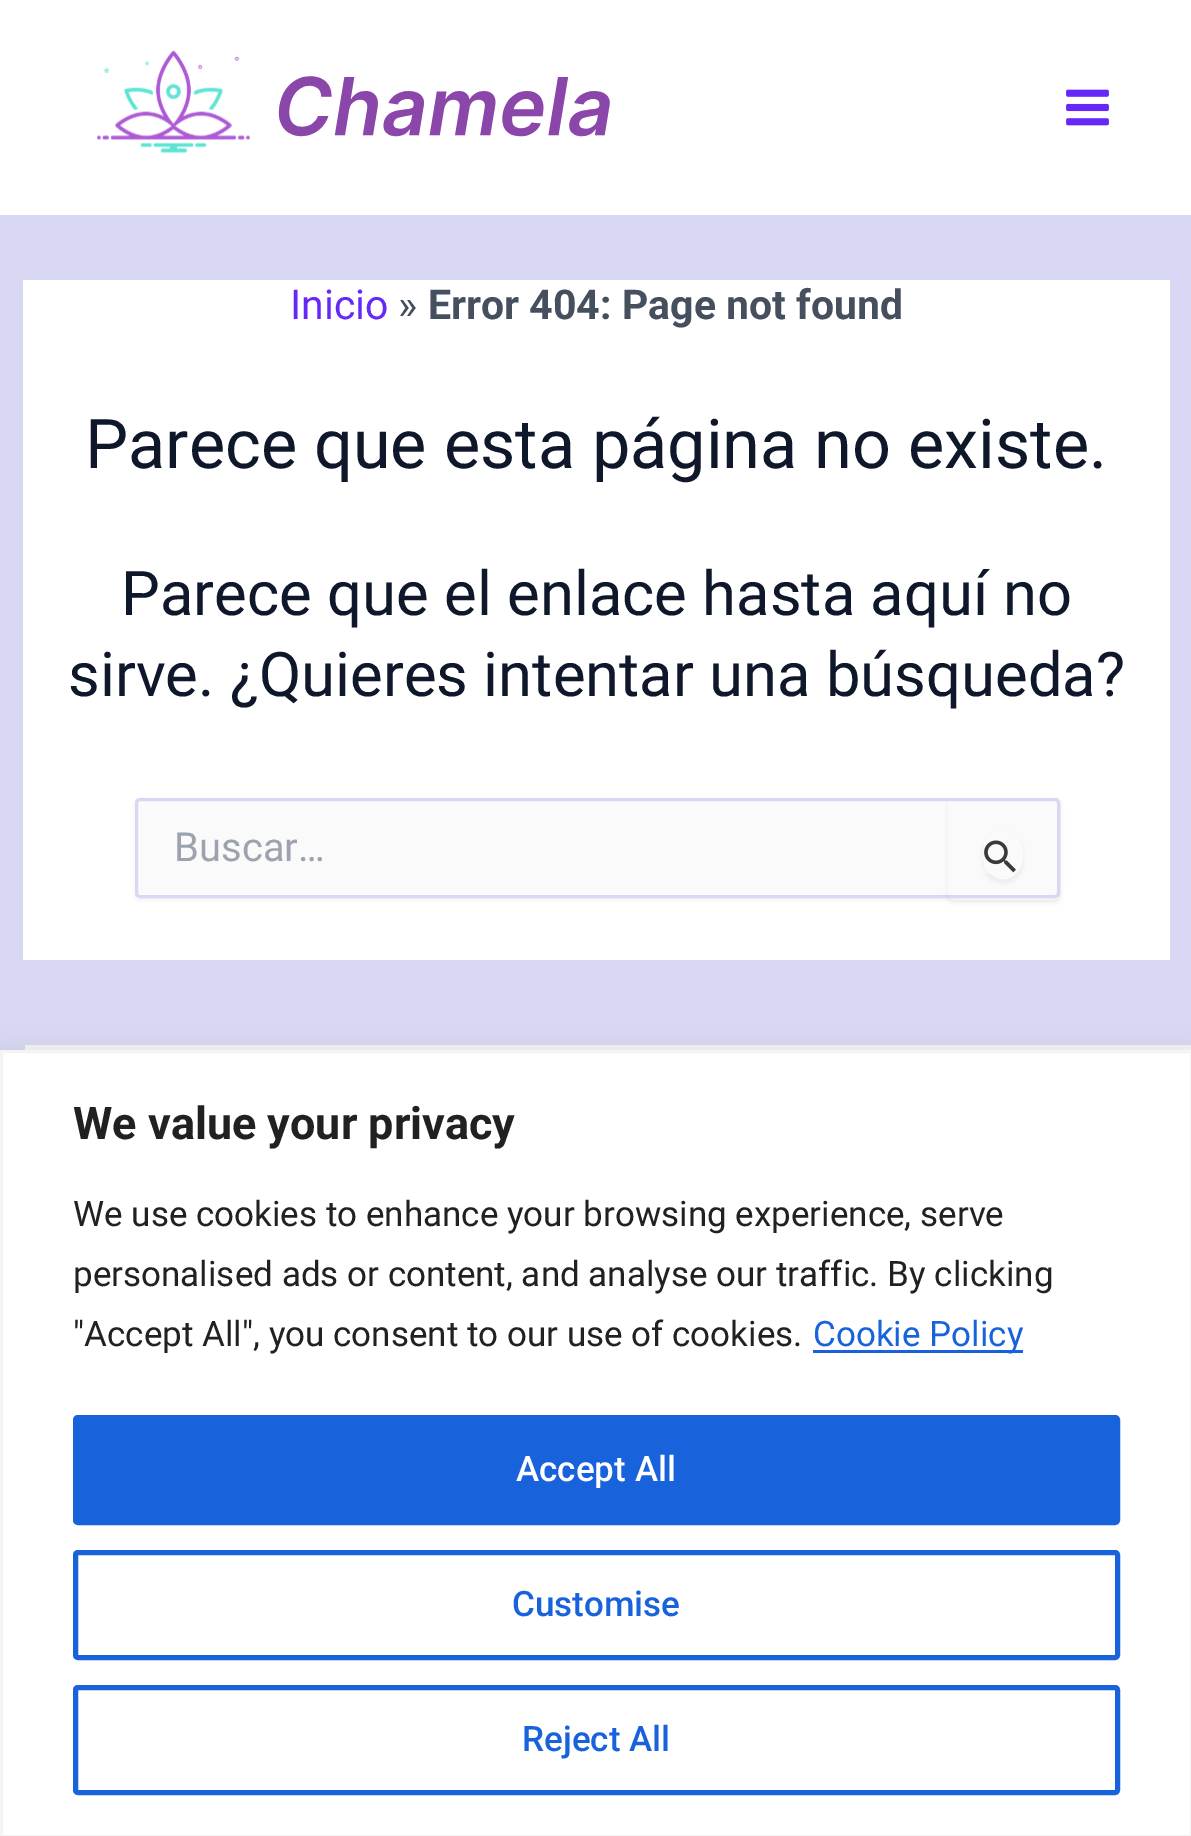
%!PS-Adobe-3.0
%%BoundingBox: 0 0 1191 1836
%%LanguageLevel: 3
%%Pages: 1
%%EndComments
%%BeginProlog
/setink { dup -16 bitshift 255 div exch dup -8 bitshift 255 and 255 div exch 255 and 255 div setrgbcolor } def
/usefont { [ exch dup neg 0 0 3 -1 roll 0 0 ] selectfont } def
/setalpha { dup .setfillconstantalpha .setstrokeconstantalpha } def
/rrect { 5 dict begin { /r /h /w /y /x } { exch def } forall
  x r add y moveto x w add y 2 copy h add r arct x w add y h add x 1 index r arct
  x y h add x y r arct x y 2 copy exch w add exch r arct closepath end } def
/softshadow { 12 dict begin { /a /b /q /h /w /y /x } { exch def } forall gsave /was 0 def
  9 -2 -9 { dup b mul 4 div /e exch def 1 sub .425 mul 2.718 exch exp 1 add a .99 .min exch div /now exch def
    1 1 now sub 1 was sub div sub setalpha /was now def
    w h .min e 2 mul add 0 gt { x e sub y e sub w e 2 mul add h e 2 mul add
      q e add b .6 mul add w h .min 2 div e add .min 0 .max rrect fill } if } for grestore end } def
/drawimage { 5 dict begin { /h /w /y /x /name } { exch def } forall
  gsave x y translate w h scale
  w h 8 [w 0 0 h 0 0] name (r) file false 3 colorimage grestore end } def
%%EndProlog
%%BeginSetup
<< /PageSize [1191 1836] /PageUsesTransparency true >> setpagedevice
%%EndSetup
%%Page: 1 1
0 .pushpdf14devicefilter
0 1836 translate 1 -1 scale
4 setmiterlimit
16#D8D8F5 setink
0 0 1191 1836 rectfill
16#FFFFFF setink
0 0 1191 215 rectfill
(img1.raw) 97 50 513 104 drawimage
(img2.raw) 1066 89 43 37 drawimage
23 280 1147 680 rectfill
/Roboto-Regular 41 usefont
16#6528F7 setink
290 319 moveto (Inicio) show
16#454F5E setink
398 319 moveto (») show
/Roboto-Bold 41 usefont
428 319 moveto (Error 404: Page not found) show
/Roboto-Regular 68.4 usefont
16#0F172A setink
85 468 moveto (Parece que esta página no existe.) show
/Roboto-Regular 61.6 usefont
121 615 moveto (Parece que el enlace hasta aquí no) show
68 696 moveto (sirve. ¿Quieres intentar una búsqueda?) show
16#000000 setink
135 800 925 100 5 2.5 0.05 softshadow
16#FAFAFA setink
136.5 799.5 922 97 3.5 rrect gsave fill grestore
16#D8D8F5 setink
3 setlinewidth
stroke
/Roboto-Regular 40 usefont
16#9CA3AF setink
174 861 moveto (Buscar…) show
gsave
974 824 moveto 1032 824 lineto 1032 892 lineto 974 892 lineto closepath 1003 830 moveto 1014 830 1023 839 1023 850 curveto 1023 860 lineto 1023 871 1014 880 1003 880 curveto 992 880 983 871 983 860 curveto 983 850 lineto 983 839 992 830 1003 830 curveto closepath eoclip newpath
16#000000 setink
983 833 40 50 20 2.5 0.05 softshadow
grestore
(img3.raw) 984 840 32 33 drawimage
gsave
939 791 moveto 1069 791 lineto 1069 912 lineto 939 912 lineto closepath 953 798 moveto 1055 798 lineto 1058 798 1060 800 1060 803 curveto 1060 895 lineto 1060 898 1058 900 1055 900 curveto 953 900 lineto 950 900 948 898 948 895 curveto 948 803 lineto 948 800 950 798 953 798 curveto closepath eoclip newpath
16#000000 setink
948 800 112 103 5 2.5 0.05 softshadow
grestore
16#F9F9F9 setink
25 1045 1166 5 rectfill
16#ACABAB setink
0 1048 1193 787 0 12.5 0.3 softshadow
16#FFFFFF setink
1.5 1051.5 moveto 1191.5 1051.5 lineto 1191.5 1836.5 lineto 1.5 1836.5 lineto closepath gsave fill grestore
16#F4F4F4 setink
stroke
/Roboto-Bold 45 usefont
16#212121 setink
73 1139 moveto (We value your privacy) show
/Roboto-Regular 35 usefont
[
    [(We use cookies to enhance your browsing experience, serve) 73 1226]
    [(personalised ads or content, and analyse our traffic. By clicking) 73 1286]
    [("Accept All", you consent to our use of cookies.) 73 1346]
] { aload pop moveto show } forall
16#1863DC setink
813 1350 210 3 rectfill
813 1346 moveto (Cookie Policy) show
75.5 1417.5 1042 105 2.5 rrect gsave fill grestore
5 setlinewidth
stroke
/Roboto-Medium 35 usefont
16#FFFFFF setink
516 1481 moveto (Accept All) show
16#1863DC setink
75.5 1552.5 1042 105 2.5 rrect stroke
512 1616 moveto (Customise) show
75.5 1687.5 1042 105 2.5 rrect stroke
522 1751 moveto (Reject All) show
.poppdf14devicefilter showpage
%%EOF
